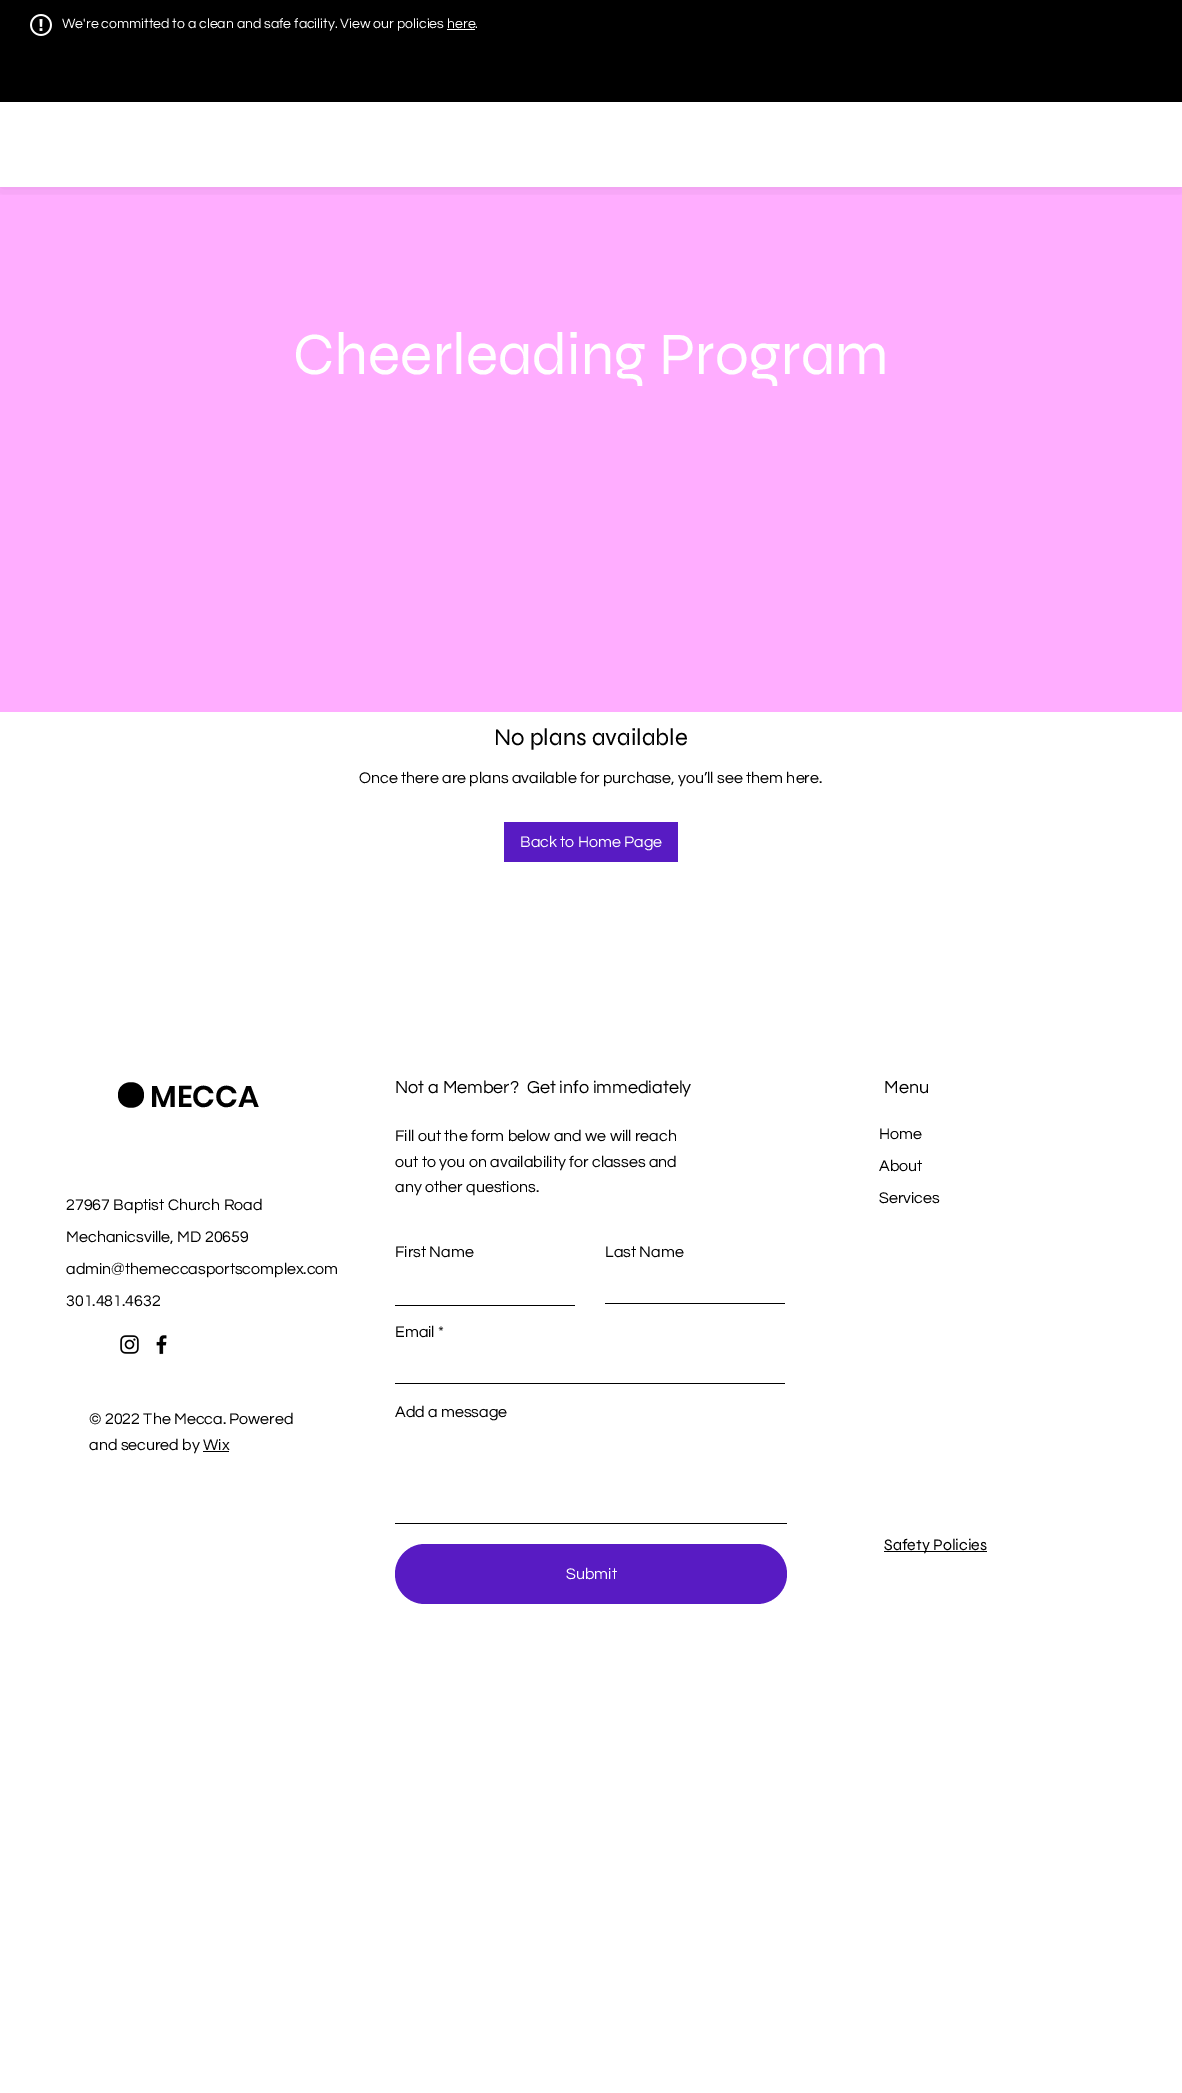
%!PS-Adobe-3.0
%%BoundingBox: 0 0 1182 2093
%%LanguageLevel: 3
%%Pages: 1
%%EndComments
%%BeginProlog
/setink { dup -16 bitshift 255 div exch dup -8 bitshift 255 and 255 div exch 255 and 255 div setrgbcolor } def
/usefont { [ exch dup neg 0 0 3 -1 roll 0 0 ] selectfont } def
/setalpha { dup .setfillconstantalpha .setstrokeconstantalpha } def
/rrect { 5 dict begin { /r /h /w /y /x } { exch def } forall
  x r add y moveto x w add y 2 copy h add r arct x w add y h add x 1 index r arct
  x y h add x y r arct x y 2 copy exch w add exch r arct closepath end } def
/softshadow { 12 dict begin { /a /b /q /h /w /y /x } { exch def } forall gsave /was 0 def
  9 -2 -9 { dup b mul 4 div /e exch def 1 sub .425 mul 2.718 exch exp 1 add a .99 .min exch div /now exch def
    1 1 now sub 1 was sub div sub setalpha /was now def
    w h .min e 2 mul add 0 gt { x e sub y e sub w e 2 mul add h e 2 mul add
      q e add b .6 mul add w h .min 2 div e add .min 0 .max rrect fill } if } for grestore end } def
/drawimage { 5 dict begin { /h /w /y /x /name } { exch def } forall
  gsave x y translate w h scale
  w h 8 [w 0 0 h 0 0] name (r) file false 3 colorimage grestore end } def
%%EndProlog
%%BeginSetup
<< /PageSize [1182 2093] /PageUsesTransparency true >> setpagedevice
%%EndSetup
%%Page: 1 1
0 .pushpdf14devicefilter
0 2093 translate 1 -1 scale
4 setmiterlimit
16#FFFFFF setink
0 0 1182 2093 rectfill
16#FFADFF setink
0 187 1182 525 rectfill
gsave
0 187 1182 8 rectclip
16#000000 setink
0 0 1182 187 0 10 0.1 softshadow
grestore
16#000000 setink
0 0 1182 102 rectfill
(img1.raw) 30 14 22 22 drawimage
/Questrial-Regular 14 usefont
16#FFFFFF setink
62 28 moveto (We're committed to a clean and safe facility. View our policies here.) show
447 29 28 1 rectfill
/Syne-Regular 60 usefont
293 374 moveto (Cheerleading Program) show
/Syne-Regular 24 usefont
16#000000 setink
494 745 moveto (No plans available) show
/Questrial-Regular 16 usefont
359 783 moveto (Once there are plans available for purchase, you’ll see them here.) show
16#581BC3 setink
504 822 174 40 rectfill
16#FFFFFF setink
520 847 moveto (Back to Home Page) show
16#000000 setink
144 1095 moveto 144 1112 118 1112 118 1095 curveto 118 1078 144 1078 144 1095 curveto closepath fill
/Poppins-SemiBold 30 usefont
150 1107 moveto (MECCA) show
/Questrial-Regular 16 usefont
[
    [(27967 Baptist Church Road) 66 1210]
    [(Mechanicsville, MD 20659) 66 1242]
    [(admin@themeccasportscomplex.com) 66 1274]
    [(301.481.4632) 66 1306]
] { aload pop moveto show } forall
(img2.raw) 120 1335 19 19 drawimage
(img3.raw) 156 1335 11 20 drawimage
89 1424 moveto (© 2022 The Mecca. Powered) show
89 1450 moveto (and secured by Wix) show
203 1451 26 1 rectfill
/Questrial-Regular 18 usefont
395 1093 moveto (Not a Member?  Get info immediately) show
/Questrial-Regular 16 usefont
[
    [(Fill out the form below and we will reach) 395 1141]
    [(out to you on availability for classes and) 395 1167]
    [(any other questions.) 395 1192]
    [(First Name) 395 1257]
] { aload pop moveto show } forall
395 1305 180 1 rectfill
605 1257 moveto (Last Name) show
605 1303 180 1 rectfill
395 1337 moveto (Email *) show
395 1383 390 1 rectfill
395 1417 moveto (Add a message) show
395 1523 392 1 rectfill
16#581BC3 setink
395 1544 392 60 30 rrect fill
16#FFFFFF setink
566 1579 moveto (Submit) show
/Questrial-Regular 18 usefont
16#000000 setink
884 1093 moveto (Menu) show
/Questrial-Regular 16 usefont
[
    [(Home) 879 1139]
    [(About) 879 1171]
    [(Services) 879 1203]
] { aload pop moveto show } forall
884 1551 103 1 rectfill
/Syne-Regular 16 usefont
884 1550 moveto (Safety Policies) show
.poppdf14devicefilter showpage
%%EOF
